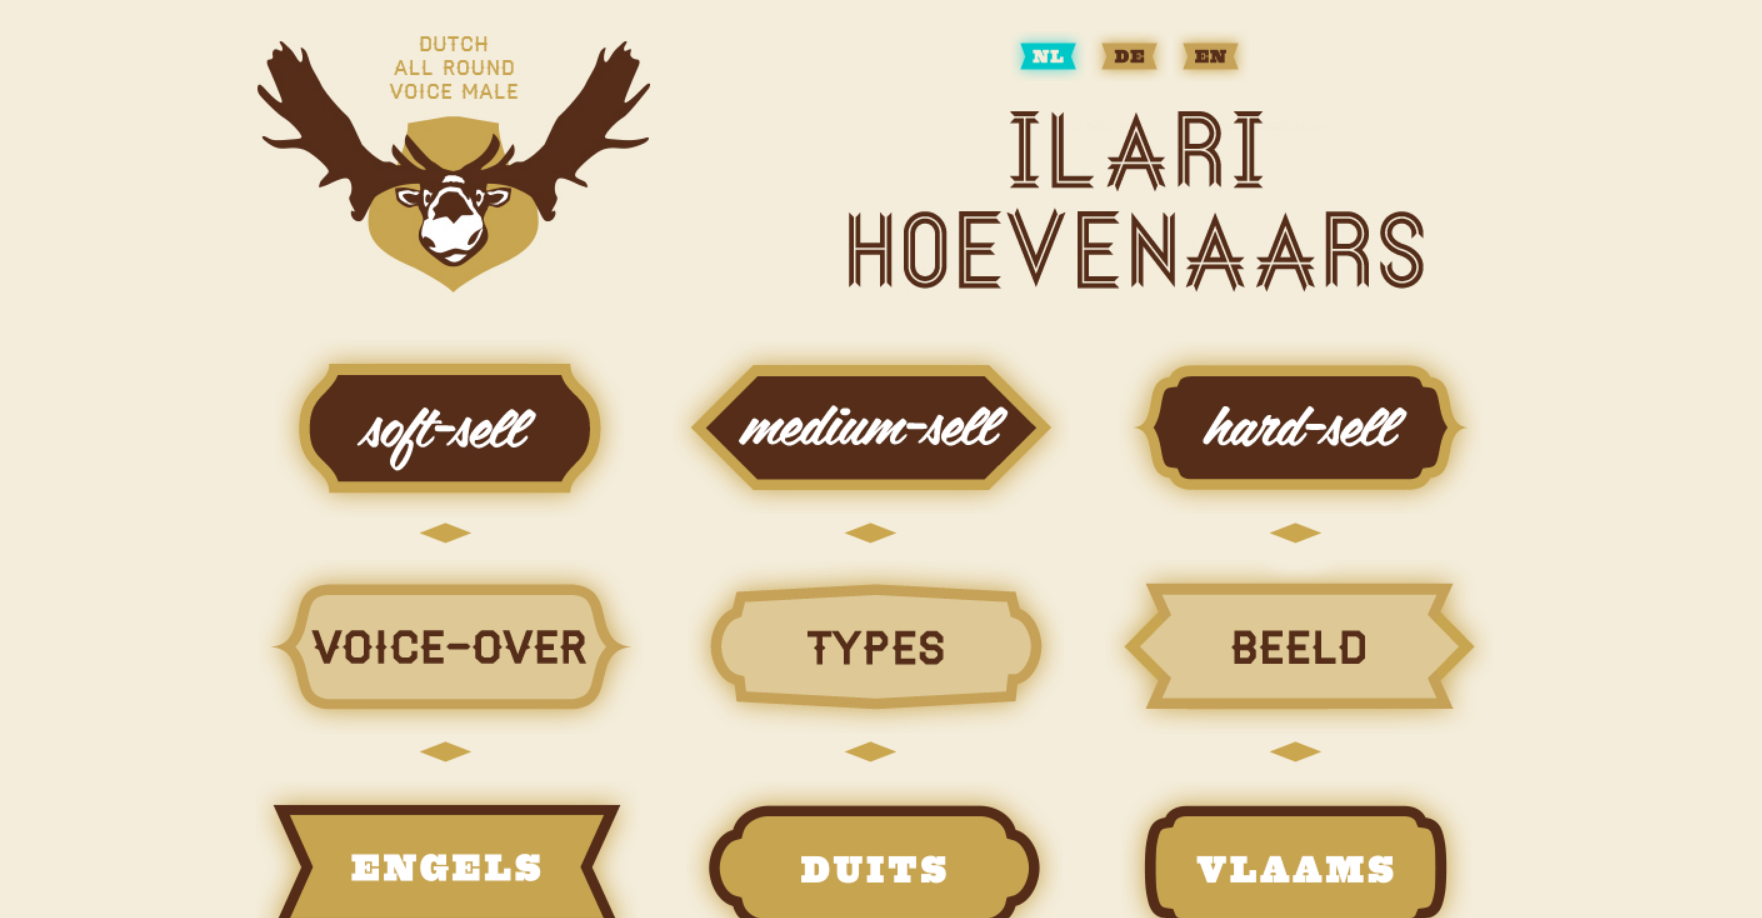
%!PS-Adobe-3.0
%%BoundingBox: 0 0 1762 918
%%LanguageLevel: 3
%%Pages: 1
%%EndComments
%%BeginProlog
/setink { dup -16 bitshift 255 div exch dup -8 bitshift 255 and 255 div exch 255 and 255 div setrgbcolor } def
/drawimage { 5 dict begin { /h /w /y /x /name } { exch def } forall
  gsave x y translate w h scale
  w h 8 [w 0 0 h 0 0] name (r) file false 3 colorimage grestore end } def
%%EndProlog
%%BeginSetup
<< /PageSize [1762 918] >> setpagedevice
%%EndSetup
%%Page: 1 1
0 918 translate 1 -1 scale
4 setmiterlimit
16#F4EDDB setink
0 0 1762 918 rectfill
(img1.raw) 257 36 394 257 drawimage
(img2.raw) 1011 31 74 50 drawimage
(img3.raw) 1091 30 76 52 drawimage
(img4.raw) 1173 30 76 52 drawimage
(img5.raw) 848 111 576 182 drawimage
(img6.raw) 276 340 348 177 drawimage
(img7.raw) 419 522 53 22 drawimage
(img8.raw) 673 341 396 173 drawimage
(img9.raw) 844 522 53 22 drawimage
(img10.raw) 1119 341 363 173 drawimage
(img7.raw) 1269 522 53 22 drawimage
(img11.raw) 259 560 384 174 drawimage
(img12.raw) 419 741 53 22 drawimage
(img13.raw) 688 561 376 172 drawimage
(img14.raw) 844 741 53 22 drawimage
(img15.raw) 1106 560 387 174 drawimage
(img12.raw) 1269 741 53 22 drawimage
(img16.raw) 256 781 382 137 drawimage
(img17.raw) 686 781 377 137 drawimage
(img18.raw) 1121 781 350 137 drawimage
showpage
%%EOF
